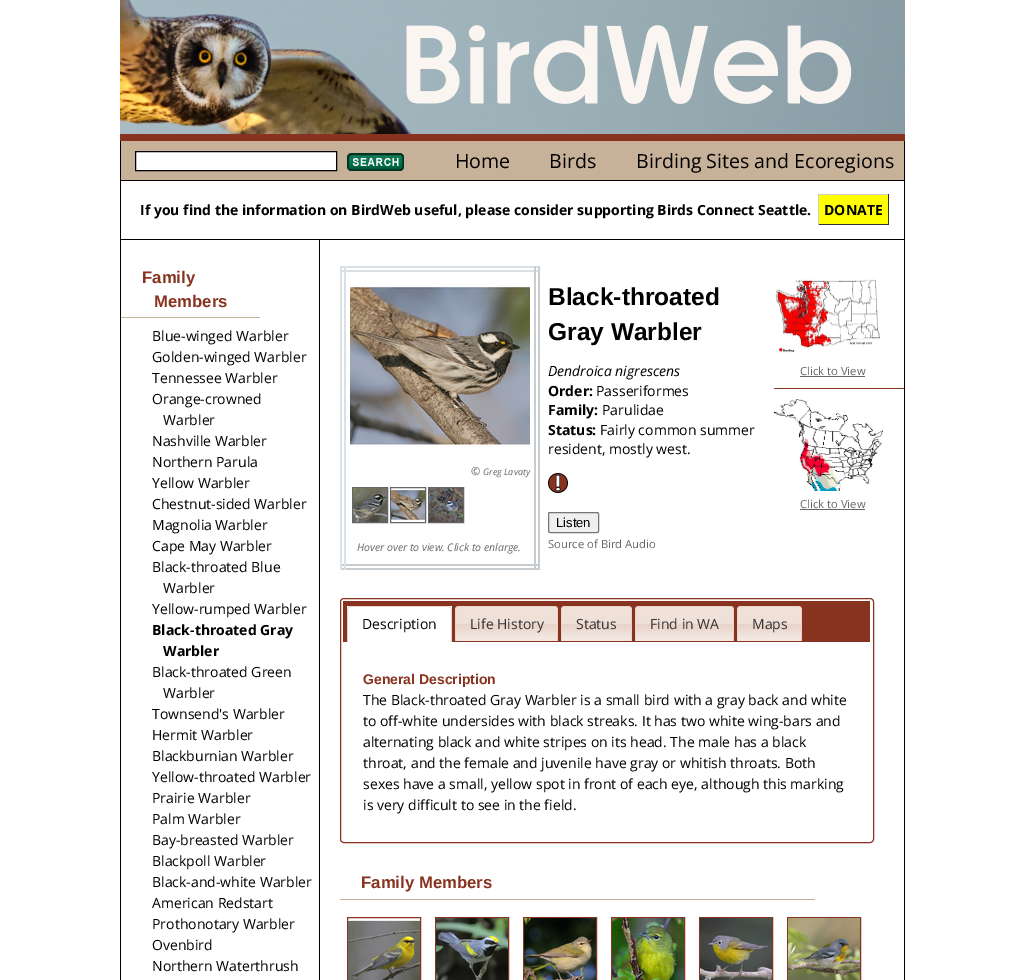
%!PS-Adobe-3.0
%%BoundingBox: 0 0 1024 980
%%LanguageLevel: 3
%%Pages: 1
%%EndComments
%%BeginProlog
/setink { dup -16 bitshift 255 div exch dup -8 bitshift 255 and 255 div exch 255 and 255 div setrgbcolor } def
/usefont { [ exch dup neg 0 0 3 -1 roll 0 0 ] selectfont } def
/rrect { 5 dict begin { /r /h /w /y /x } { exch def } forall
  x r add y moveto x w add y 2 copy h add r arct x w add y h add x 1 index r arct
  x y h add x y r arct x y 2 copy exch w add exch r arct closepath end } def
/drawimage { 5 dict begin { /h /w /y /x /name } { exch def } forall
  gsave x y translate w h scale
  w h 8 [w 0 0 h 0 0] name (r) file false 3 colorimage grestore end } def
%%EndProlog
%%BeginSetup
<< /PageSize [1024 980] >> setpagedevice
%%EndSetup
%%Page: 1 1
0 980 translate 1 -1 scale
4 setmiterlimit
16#FFFFFF setink
0 0 1024 980 rectfill
16#87331F setink
120 134 785 7 rectfill
(img1.raw) 120 0 785 134 drawimage
[
    [904 141 1 839 16#000000]
    [120 141 1 839 16#000000]
    [121 141 783 39 16#C7B199]
] { aload pop setink rectfill } forall
16#FFFFFF setink
135.5 151.5 moveto 336.5 151.5 lineto 336.5 170.5 lineto 135.5 170.5 lineto closepath gsave fill grestore
16#000000 setink
stroke
(img2.raw) 347 153 57 18 drawimage
/OpenSans-Regular 19.6 usefont
[
    [(Home) 455 168]
    [(Birds) 549 168]
    [(Birding Sites and Ecoregions) 636 168]
] { aload pop moveto show } forall
121 180 783 1 rectfill
121 239 783 1 rectfill
/OpenSans-Bold 14 usefont
140 215 moveto (If you find the information on BirdWeb useful, please consider supporting Birds Connect Seattle.) show
16#FFFF00 setink
819 195 69 29 rectfill
16#000000 setink
824 215 moveto (DONATE) show
[
    [818 194 71 1 16#CCCCCC]
    [888 194 1 31 16#333333]
    [818 224 71 1 16#333333]
    [818 194 1 31 16#CCCCCC]
    [121 317 139 1 16#C7B299]
] { aload pop setink rectfill } forall
/LiberationSans-Bold 16.75 usefont
16#87331F setink
142 283 moveto (Family) show
154 307 moveto (Members) show
/OpenSans-Regular 14 usefont
16#000000 setink
[
    [(Blue-winged Warbler) 152 341]
    [(Golden-winged Warbler) 152 362]
    [(Tennessee Warbler) 152 383]
    [(Orange-crowned) 152 404]
    [(Warbler) 163 425]
    [(Nashville Warbler) 152 446]
    [(Northern Parula) 152 467]
    [(Yellow Warbler) 152 488]
    [(Chestnut-sided Warbler) 152 509]
    [(Magnolia Warbler) 152 530]
    [(Cape May Warbler) 152 551]
    [(Black-throated Blue) 152 572]
    [(Warbler) 163 593]
    [(Yellow-rumped Warbler) 152 614]
] { aload pop moveto show } forall
/OpenSans-Bold 14 usefont
152 635 moveto (Black-throated Gray) show
163 656 moveto (Warbler) show
/OpenSans-Regular 14 usefont
[
    [(Black-throated Green) 152 677]
    [(Warbler) 163 698]
    [(Townsend's Warbler) 152 719]
    [(Hermit Warbler) 152 740]
    [(Blackburnian Warbler) 152 761]
    [(Yellow-throated Warbler) 152 782]
    [(Prairie Warbler) 152 803]
    [(Palm Warbler) 152 824]
    [(Bay-breasted Warbler) 152 845]
    [(Blackpoll Warbler) 152 866]
    [(Black-and-white Warbler) 152 887]
    [(American Redstart) 152 908]
    [(Prothonotary Warbler) 152 929]
    [(Ovenbird) 152 950]
    [(Northern Waterthrush) 152 971]
] { aload pop moveto show } forall
[
    [319 240 1 740 16#000000]
    [340 266 200 2 16#D9E0E6]
    [340 270 200 2 16#D9E0E6]
    [534 266 2 304 16#C8CDD2]
    [538 266 2 304 16#C8CDD2]
    [340 564 200 2 16#C8CDD2]
    [340 568 200 2 16#C8CDD2]
    [340 266 2 304 16#D9E0E6]
    [344 266 2 304 16#D9E0E6]
] { aload pop setink rectfill } forall
(img3.raw) 350 287 180 160 drawimage
/OpenSans-Italic 11.25 usefont
16#666666 setink
471 475 moveto (©) show
/OpenSans-Italic 9 usefont
483 475 moveto (Greg Lavaty) show
352.5 487.5 35 35 rectstroke
390.5 487.5 35 35 rectstroke
428.5 487.5 35 35 rectstroke
(img4.raw) 353 488 34 34 drawimage
(img5.raw) 391 489 34 31 drawimage
(img6.raw) 429 488 34 34 drawimage
/OpenSans-Italic 10.5 usefont
357 551 moveto (Hover over to view. Click to enlarge.) show
/LiberationSans-Bold 24.5 usefont
16#000000 setink
548 305 moveto (Black-throated) show
548 340 moveto (Gray Warbler) show
/OpenSans-Italic 14 usefont
548 376 moveto (Dendroica nigrescens) show
/OpenSans-Bold 14 usefont
548 396 moveto (Order:) show
/OpenSans-Regular 14 usefont
596 396 moveto (Passeriformes) show
/OpenSans-Bold 14 usefont
548 415 moveto (Family:) show
/OpenSans-Regular 14 usefont
602 415 moveto (Parulidae) show
/OpenSans-Bold 14 usefont
548 435 moveto (Status:) show
/OpenSans-Regular 14 usefont
600 435 moveto (Fairly common summer) show
548 454 moveto (resident, mostly west.) show
(img7.raw) 548 473 20 20 drawimage
16#EFEFEF setink
548.5 512.5 50 20 1.5 rrect gsave fill grestore
16#767676 setink
stroke
/LiberationSans-Regular 13 usefont
16#000000 setink
556 527 moveto (Listen) show
/OpenSans-Regular 11.25 usefont
16#666666 setink
548 548 moveto (Source of Bird Audio) show
(img8.raw) 776 278 104 76 drawimage
800 375 moveto (Click to View) show
800 376 65 1 rectfill
16#87331F setink
774 388 130 1 rectfill
(img9.raw) 774 399 109 92 drawimage
16#666666 setink
800 508 moveto (Click to View) show
800 509 65 1 rectfill
16#87331F setink
340.5 598.5 533 244 3.5 rrect stroke
[
    [343 601 527 41 16#87331F]
    [348 610 103 32 16#FFFFFF]
    [347 606 105 4 16#FEFEFE]
] { aload pop setink rectfill } forall
16#E9D4C9 setink
351 606 moveto 448 606 lineto 450 606 452 608 452 610 curveto 452 642 lineto 347 642 lineto 347 610 lineto 347 608 349 606 351 606 curveto closepath 351 607 moveto 448 607 lineto 450 607 451 608 451 610 curveto 451 642 lineto 348 642 lineto 348 610 lineto 348 608 349 607 351 607 curveto closepath eofill
/OpenSans-Regular 14 usefont
16#000000 setink
362 629 moveto (Description) show
(img10.raw) 455 606 103 35 drawimage
16#E9D4C9 setink
459 606 moveto 554 606 lineto 556 606 558 608 558 610 curveto 558 641 lineto 455 641 lineto 455 610 lineto 455 608 457 606 459 606 curveto closepath 459 607 moveto 554 607 lineto 556 607 557 608 557 610 curveto 557 641 lineto 456 641 lineto 456 610 lineto 456 608 457 607 459 607 curveto closepath eofill
16#333333 setink
470 629 moveto (Life History) show
(img11.raw) 561 606 71 35 drawimage
16#E9D4C9 setink
565 606 moveto 628 606 lineto 630 606 632 608 632 610 curveto 632 641 lineto 561 641 lineto 561 610 lineto 561 608 563 606 565 606 curveto closepath 565 607 moveto 628 607 lineto 630 607 631 608 631 610 curveto 631 641 lineto 562 641 lineto 562 610 lineto 562 608 563 607 565 607 curveto closepath eofill
16#333333 setink
576 629 moveto (Status) show
(img12.raw) 635 606 99 35 drawimage
16#E9D4C9 setink
639 606 moveto 730 606 lineto 732 606 734 608 734 610 curveto 734 641 lineto 635 641 lineto 635 610 lineto 635 608 637 606 639 606 curveto closepath 639 607 moveto 730 607 lineto 732 607 733 608 733 610 curveto 733 641 lineto 636 641 lineto 636 610 lineto 636 608 637 607 639 607 curveto closepath eofill
16#333333 setink
650 629 moveto (Find in WA) show
(img13.raw) 737 606 65 35 drawimage
16#E9D4C9 setink
741 606 moveto 798 606 lineto 800 606 802 608 802 610 curveto 802 641 lineto 737 641 lineto 737 610 lineto 737 608 739 606 741 606 curveto closepath 741 607 moveto 798 607 lineto 800 607 801 608 801 610 curveto 801 641 lineto 738 641 lineto 738 610 lineto 738 608 739 607 741 607 curveto closepath eofill
16#333333 setink
752 629 moveto (Maps) show
/LiberationSans-Bold 14 usefont
16#87331F setink
363 684 moveto (General Description) show
/OpenSans-Regular 14 usefont
16#000000 setink
[
    [(The Black-throated Gray Warbler is a small bird with a gray back and white) 363 705]
    [(to off-white undersides with black streaks. It has two white wing-bars and) 363 726]
    [(alternating black and white stripes on its head. The male has a black) 363 747]
    [(throat, and the female and juvenile have gray or whitish throats. Both) 363 768]
    [(sexes have a small, yellow spot in front of each eye, although this marking) 363 789]
    [(is very difficult to see in the field.) 363 810]
] { aload pop moveto show } forall
16#C7B299 setink
340 899 475 1 rectfill
/LiberationSans-Bold 16.75 usefont
16#87331F setink
361 888 moveto (Family Members) show
16#893320 setink
347.5 917.5 73 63 rectstroke
(img14.raw) 348 920 72 60 drawimage
435.5 917.5 73 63 rectstroke
(img15.raw) 436 918 72 62 drawimage
523.5 917.5 73 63 rectstroke
(img16.raw) 524 918 72 62 drawimage
611.5 917.5 73 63 rectstroke
(img17.raw) 612 918 72 62 drawimage
699.5 917.5 73 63 rectstroke
(img18.raw) 700 918 72 62 drawimage
787.5 917.5 73 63 rectstroke
(img19.raw) 788 918 72 62 drawimage
showpage
%%EOF
